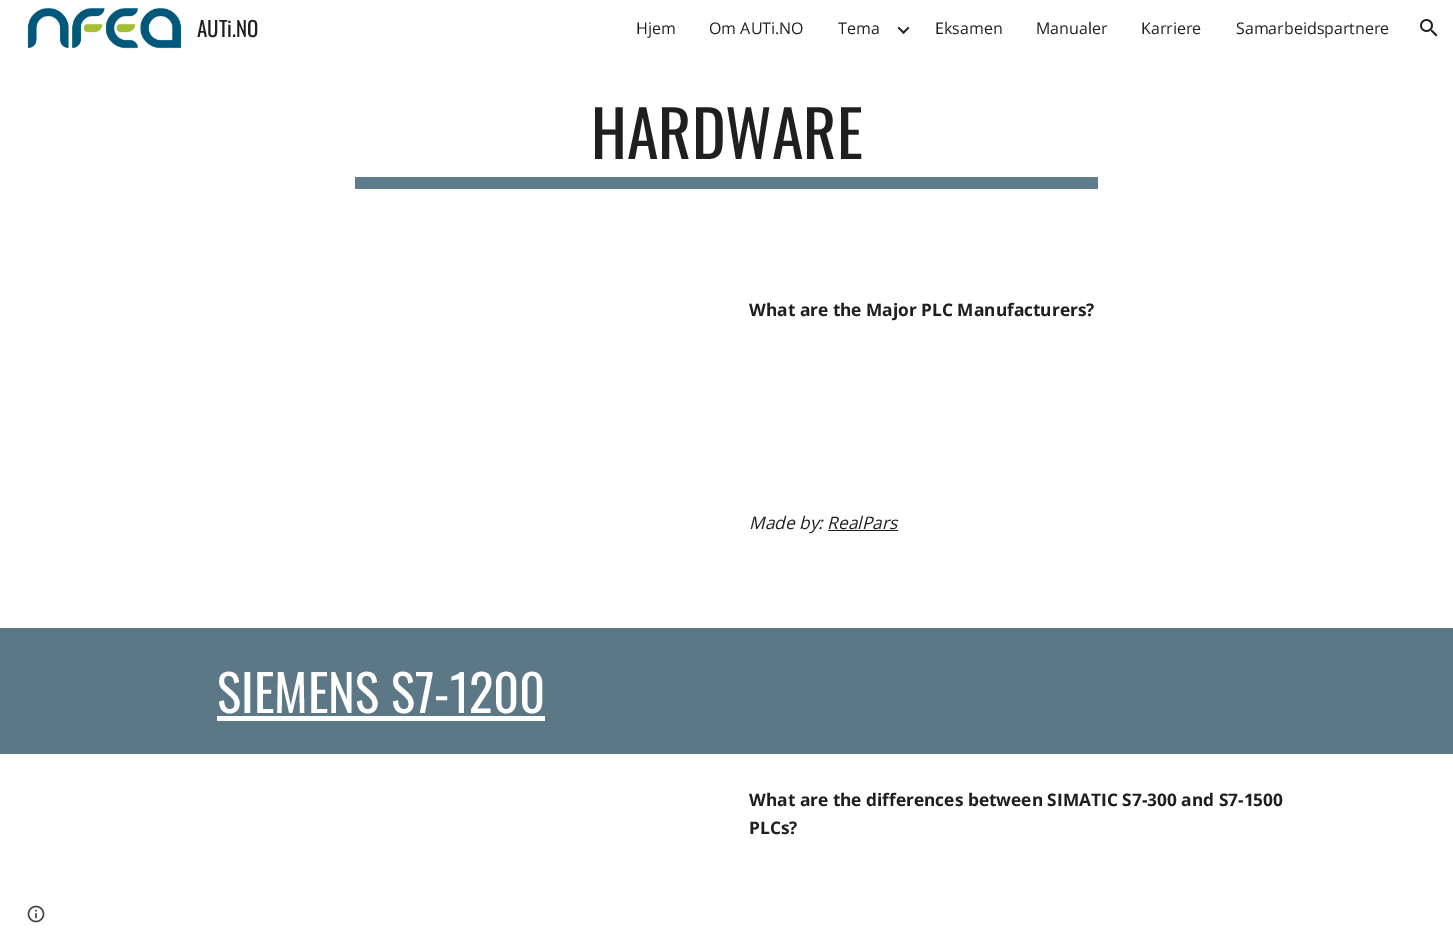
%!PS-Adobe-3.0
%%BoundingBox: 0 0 1453 948
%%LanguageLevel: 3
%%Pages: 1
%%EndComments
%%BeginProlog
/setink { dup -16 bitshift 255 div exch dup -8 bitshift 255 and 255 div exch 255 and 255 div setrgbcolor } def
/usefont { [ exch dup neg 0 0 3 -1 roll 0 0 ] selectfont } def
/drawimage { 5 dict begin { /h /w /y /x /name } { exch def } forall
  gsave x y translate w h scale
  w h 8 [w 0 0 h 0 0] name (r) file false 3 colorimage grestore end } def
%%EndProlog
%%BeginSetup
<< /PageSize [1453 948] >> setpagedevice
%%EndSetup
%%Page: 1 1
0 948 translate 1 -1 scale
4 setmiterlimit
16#FFFFFF setink
0 0 1453 948 rectfill
(img1.raw) 27 8 155 41 drawimage
/Oswald-Regular 21 usefont
16#1F1F1F setink
197 37 moveto (AUTi.NO) show
/OpenSans-Regular 16 usefont
[
    [(Hjem) 636 34]
    [(Om AUTi.NO) 709 34]
    [(Tema) 838 34]
] { aload pop moveto show } forall
(img2.raw) 897 26 13 8 drawimage
[
    [(Eksamen) 935 34]
    [(Manualer) 1036 34]
    [(Karriere) 1141 34]
    [(Samarbeidspartnere) 1236 34]
] { aload pop moveto show } forall
(img3.raw) 1420 19 18 18 drawimage
/Oswald-Regular 64 usefont
591 159 moveto (HARDWARE) show
16#607D8B setink
355 177 743 12 rectfill
/OpenSans-Bold 17.3 usefont
16#1F1F1F setink
749 316 moveto (What are the Major PLC Manufacturers?) show
/OpenSans-Italic 17.3 usefont
749 529 moveto (Made by: RealPars) show
16#212121 setink
828 530 70 1 rectfill
16#5C7887 setink
0 628 1453 126 rectfill
/Oswald-Regular 50.75 usefont
16#FFFFFF setink
217 713 moveto (SIEMENS S7-1200) show
217 716 328 5 rectfill
/OpenSans-Bold 17.3 usefont
16#1F1F1F setink
749 806 moveto (What are the differences between SIMATIC S7-300 and S7-1500) show
749 834 moveto (PLCs?) show
(img4.raw) 27 905 18 18 drawimage
showpage
%%EOF
